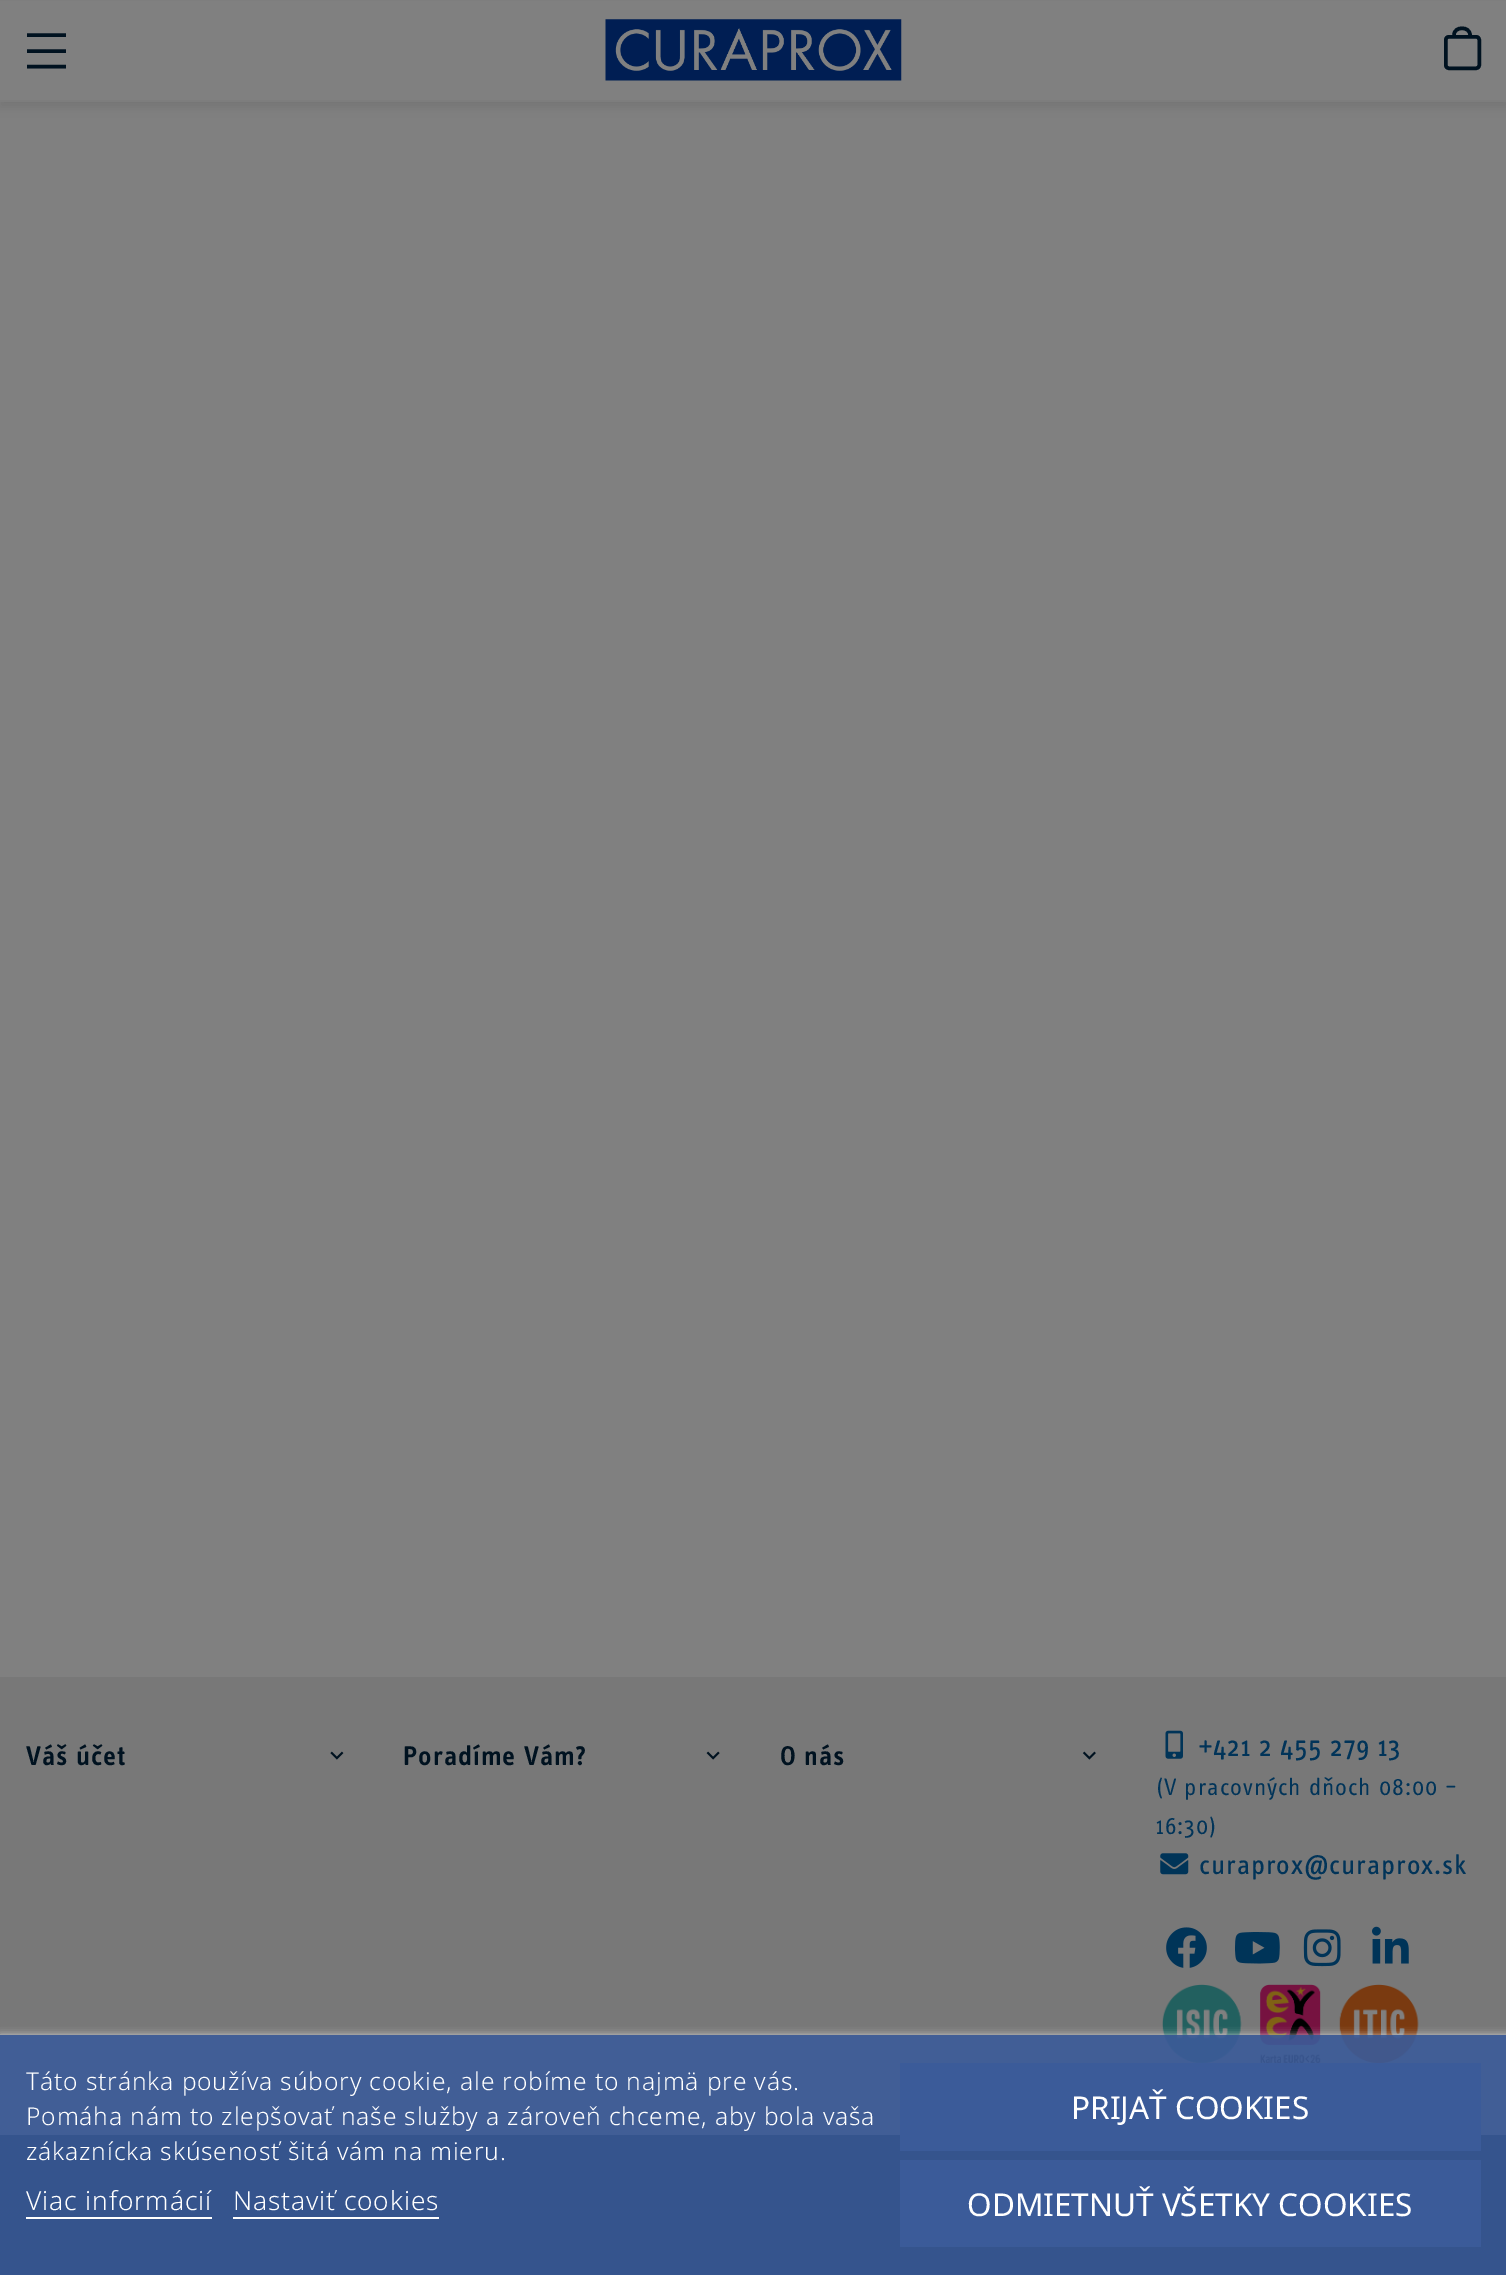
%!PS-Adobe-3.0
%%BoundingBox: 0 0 1506 2275
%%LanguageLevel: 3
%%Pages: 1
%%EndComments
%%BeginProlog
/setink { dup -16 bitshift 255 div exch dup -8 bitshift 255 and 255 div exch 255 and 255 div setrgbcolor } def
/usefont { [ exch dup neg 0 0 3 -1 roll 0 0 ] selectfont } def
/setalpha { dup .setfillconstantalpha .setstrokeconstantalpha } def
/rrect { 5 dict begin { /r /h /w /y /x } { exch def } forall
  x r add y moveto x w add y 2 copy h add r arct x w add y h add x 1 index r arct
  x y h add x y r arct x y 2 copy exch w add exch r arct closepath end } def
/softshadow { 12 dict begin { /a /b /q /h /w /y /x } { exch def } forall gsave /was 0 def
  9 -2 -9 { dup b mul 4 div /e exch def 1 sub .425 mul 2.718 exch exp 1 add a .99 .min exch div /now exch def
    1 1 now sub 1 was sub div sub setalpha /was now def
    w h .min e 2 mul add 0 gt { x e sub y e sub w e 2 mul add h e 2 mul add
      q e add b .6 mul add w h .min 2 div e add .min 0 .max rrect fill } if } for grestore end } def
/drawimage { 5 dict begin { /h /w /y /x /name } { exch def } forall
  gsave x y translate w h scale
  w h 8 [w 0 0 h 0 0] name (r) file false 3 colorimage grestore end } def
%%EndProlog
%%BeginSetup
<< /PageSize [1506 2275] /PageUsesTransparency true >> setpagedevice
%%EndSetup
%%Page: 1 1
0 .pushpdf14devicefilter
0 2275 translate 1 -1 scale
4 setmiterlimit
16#808080 setink
0 0 1506 2275 rectfill
gsave
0 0 moveto 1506 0 lineto 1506 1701 lineto 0 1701 lineto closepath 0 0 moveto 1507 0 lineto 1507 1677 lineto 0 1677 lineto closepath eoclip newpath
16#000000 setink
0 9 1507 1676 0 5 0.15 softshadow
grestore
16#787878 setink
0 1677 1506 458 rectfill
/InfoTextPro-SemiBold 28 usefont
16#001220 setink
26 1765 moveto 0.88 0 (Váš účet) ashow
(img1.raw) 330 1751 14 9 drawimage
403 1765 moveto 0.88 0 (Poradíme Vám?) ashow
(img2.raw) 706 1751 14 9 drawimage
780 1765 moveto 0.88 0 (O nás) ashow
(img3.raw) 1082 1751 14 9 drawimage
(img4.raw) 1165 1730 18 29 drawimage
/InfoTextPro-Regular 28 usefont
16#013459 setink
1199 1756 moveto 0.88 0 (+421 2 455 279 13) ashow
/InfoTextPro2-Regular 24.5 usefont
1156 1795 moveto 0.88 0 (\(V pracovných dňoch 08:00 –) ashow
1156 1834 moveto 0.88 0 (16:30\)) ashow
(img5.raw) 1160 1853 29 22 drawimage
/InfoTextPro-Regular 28 usefont
1199 1874 moveto 0.88 0 (curaprox@curaprox.sk) ashow
(img6.raw) 1166 1927 41 41 drawimage
(img7.raw) 1235 1932 45 32 drawimage
(img8.raw) 1303 1929 38 38 drawimage
(img9.raw) 1372 1926 37 38 drawimage
(img10.raw) 1162 1984 257 79 drawimage
16#001220 setink
0 2135 1506 140 rectfill
16#000000 setink
0 5 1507 102 0 5 0.1 softshadow
16#808080 setink
0 1 1506 99 rectfill
16#001220 setink
3.5 setlinewidth
66 35 moveto 27 35 lineto 66 51 moveto 27 51 lineto 66 66.5 moveto 27 66.5 lineto stroke
(img11.raw) 605 19 297 62 drawimage
1470 35 moveto 1470 26 1454 26 1454 35 curveto stroke
1445.75 36.75 33.5 31.5 3.25 rrect stroke
16#7D7D7D setink
0 100 1506 2 rectfill
gsave
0 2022 moveto 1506 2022 lineto 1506 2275 lineto 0 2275 lineto closepath 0 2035 moveto 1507 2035 lineto 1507 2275 lineto 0 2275 lineto closepath eoclip newpath
16#FFFFFF setink
0 2037 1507 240 0 4.5 1 softshadow
grestore
0.9 setalpha
16#3B5B99 setink
0 2035 1506 240 rectfill
/NotoSans-Light 24.5 usefont
1 setalpha
16#FFFFFF setink
26 2090 moveto 0.88 0 (Táto stránka používa súbory cookie, ale robíme to najmä pre vás.) ashow
26 2125 moveto 0.88 0 (Pomáha nám to zlepšovať naše služby a zároveň chceme, aby bola vaša) ashow
26 2160 moveto 0.88 0 (zákaznícka skúsenosť šitá vám na mieru.) ashow
/NotoSans-Light 26.25 usefont
26 2210 moveto 0.88 0 (Viac informácií) ashow
26 2217 186 2 rectfill
233 2210 moveto 0.88 0 (Nastaviť cookies) ashow
233 2217 206 2 rectfill
16#3B5B99 setink
900 2063 581 88 rectfill
/NotoSans-Regular 31.5 usefont
16#FFFFFF setink
1071 2119 moveto (PRIJAŤ COOKIES) show
16#3B5B99 setink
900 2160 581 87 rectfill
16#FFFFFF setink
967 2216 moveto (ODMIETNUŤ VŠETKY COOKIES) show
.poppdf14devicefilter showpage
%%EOF
